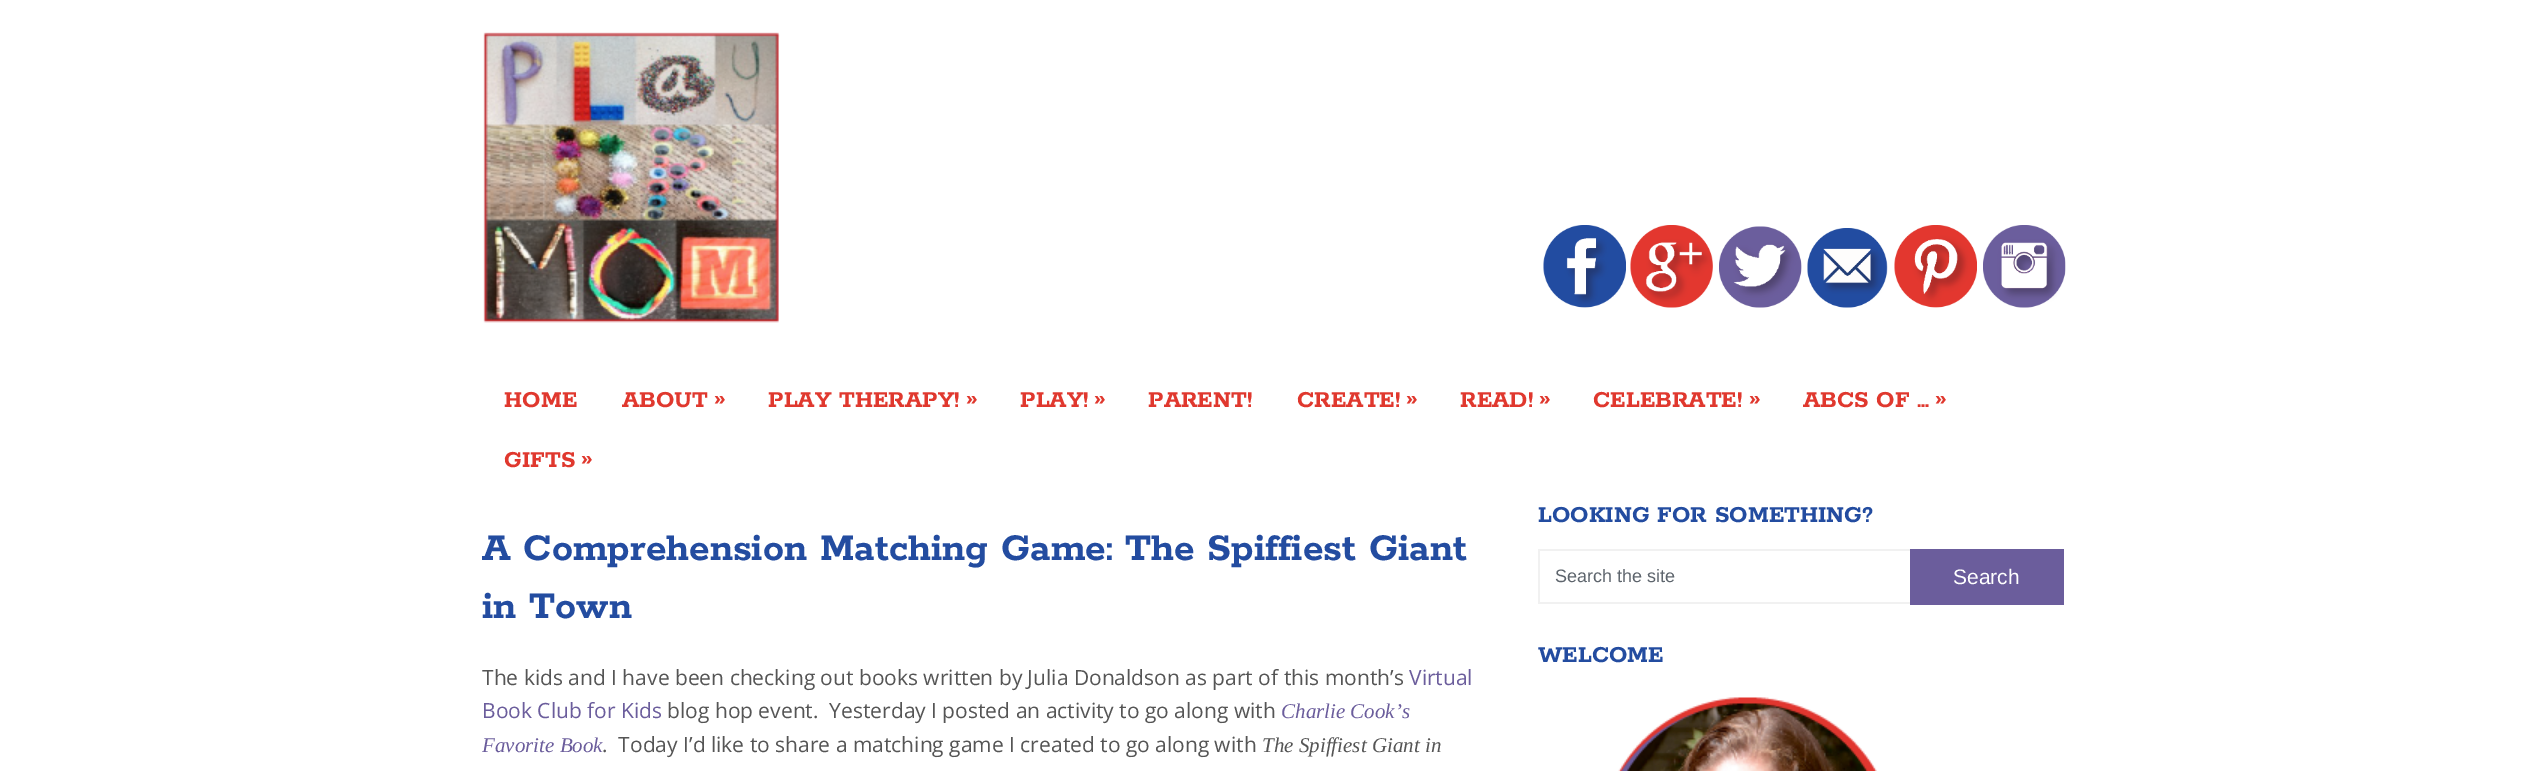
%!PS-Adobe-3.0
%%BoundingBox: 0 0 2547 771
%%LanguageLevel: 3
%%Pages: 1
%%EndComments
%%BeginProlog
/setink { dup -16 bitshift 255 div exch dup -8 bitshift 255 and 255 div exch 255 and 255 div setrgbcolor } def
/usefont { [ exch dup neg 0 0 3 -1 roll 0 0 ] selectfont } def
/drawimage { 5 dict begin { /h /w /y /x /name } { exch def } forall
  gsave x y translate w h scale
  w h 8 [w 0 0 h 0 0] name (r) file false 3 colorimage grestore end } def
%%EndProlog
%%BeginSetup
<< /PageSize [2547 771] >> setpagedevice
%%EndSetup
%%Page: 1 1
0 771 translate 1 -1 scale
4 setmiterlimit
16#FFFFFF setink
0 0 2547 771 rectfill
(img1.raw) 483 32 297 291 drawimage
(img2.raw) 1543 225 83 83 drawimage
(img3.raw) 1630 225 83 83 drawimage
(img4.raw) 1719 226 83 82 drawimage
(img5.raw) 1807 228 81 80 drawimage
(img6.raw) 1894 225 83 83 drawimage
(img7.raw) 1983 225 83 83 drawimage
/Rokkitt-Bold 25.5 usefont
16#E0382E setink
[
    [(HOME) 504 407]
    [(ABOUT) 622 407]
    [(») 714 405]
    [(PLAY THERAPY!) 768 407]
    [(») 966 405]
    [(PLAY!) 1020 407]
    [(») 1094 405]
    [(PARENT!) 1148 407]
    [(CREATE!) 1297 407]
    [(») 1406 405]
    [(READ!) 1460 407]
    [(») 1539 405]
    [(CELEBRATE!) 1593 407]
    [(») 1749 405]
    [(ABCS OF …) 1803 407]
    [(») 1935 405]
    [(GIFTS) 504 467]
    [(») 581 465]
] { aload pop moveto show } forall
/Rokkitt-Bold 42 usefont
16#234CA0 setink
482 560 moveto (A Comprehension Matching Game: The Spiffiest Giant) show
482 618 moveto (in Town) show
/OpenSans-Regular 21 usefont
16#555555 setink
482 685 moveto (The kids and I have been checking out books written by Julia Donaldson as part of this month’s) show
16#6B5D9C setink
1409 685 moveto (Virtual) show
482 718 moveto (Book Club for Kids) show
16#555555 setink
667 718 moveto (blog hop event.  Yesterday I posted an activity to go along with) show
/LiberationSerif-Italic 21 usefont
16#6B5D9C setink
1281 718 moveto (Charlie Cook’s) show
482 752 moveto (Favorite Book) show
/OpenSans-Regular 21 usefont
16#555555 setink
602 752 moveto (.  Today I’d like to share a matching game I created to go along with) show
/LiberationSerif-Italic 21 usefont
1262 752 moveto (The Spiffiest Giant in) show
/Rokkitt-Bold 25.5 usefont
16#234CA0 setink
1538 522 moveto (LOOKING FOR SOMETHING?) show
[
    [1538 549 372 2 16#F1F1F1]
    [1538 602 372 2 16#F1F1F1]
    [1538 549 2 54 16#F1F1F1]
] { aload pop setink rectfill } forall
/LiberationSans-Regular 18 usefont
16#5E656D setink
1555 582 moveto (Search the site) show
16#6B5D9C setink
1910 549 154 56 rectfill
/LiberationSans-Regular 21 usefont
16#FFFFFF setink
1953 584 moveto (Search) show
/Rokkitt-Bold 25.5 usefont
16#234CA0 setink
1538 662 moveto (WELCOME) show
(img8.raw) 1618 697 259 74 drawimage
showpage
%%EOF
